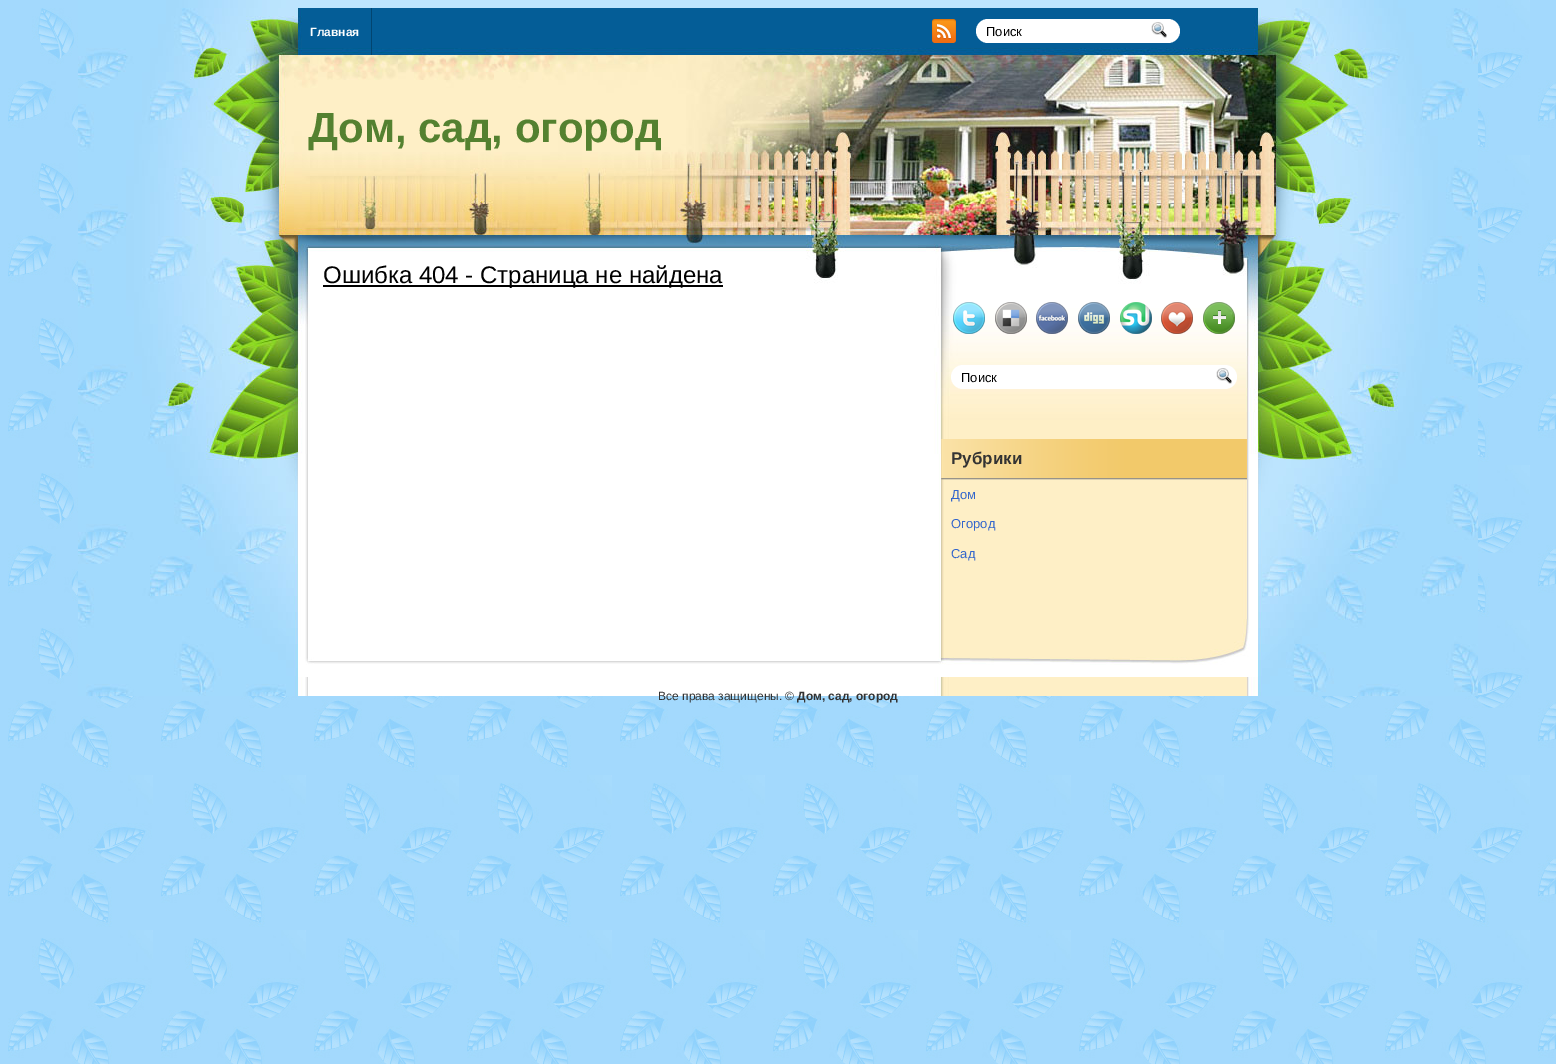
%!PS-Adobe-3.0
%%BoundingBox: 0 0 1556 1064
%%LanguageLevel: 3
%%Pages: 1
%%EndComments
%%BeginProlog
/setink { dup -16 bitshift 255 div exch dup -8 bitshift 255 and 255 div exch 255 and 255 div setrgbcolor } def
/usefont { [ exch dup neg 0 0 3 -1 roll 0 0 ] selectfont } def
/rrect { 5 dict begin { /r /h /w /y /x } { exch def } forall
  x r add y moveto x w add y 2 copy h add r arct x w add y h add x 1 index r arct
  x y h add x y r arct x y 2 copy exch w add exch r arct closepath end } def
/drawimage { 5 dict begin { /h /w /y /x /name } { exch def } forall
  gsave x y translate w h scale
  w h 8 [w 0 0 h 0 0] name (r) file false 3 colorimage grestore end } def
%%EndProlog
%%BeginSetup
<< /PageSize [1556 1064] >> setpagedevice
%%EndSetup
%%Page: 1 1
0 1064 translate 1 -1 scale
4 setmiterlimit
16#FFFFFF setink
0 0 1556 1064 rectfill
(img1.raw) 0 0 1556 1064 drawimage
(img2.raw) 78 0 1400 204 drawimage
(img3.raw) 78 204 1400 492 drawimage
16#024570 setink
371 8 1 47 rectfill
/LiberationSans-Bold 12 usefont
16#FFFFFF setink
310 36 moveto (Главная) show
(img4.raw) 932 19 24 24 drawimage
976 19 204 24 12 rrect fill
/LiberationSans-Regular 13 usefont
16#000000 setink
986 36 moveto (Поиск) show
(img5.raw) 1151 22 16 16 drawimage
/LiberationSans-Bold 42 usefont
16#548130 setink
308 142 moveto (Дом, сад, огород) show
(img6.raw) 298 454 960 165 drawimage
16#000000 setink
323 285 400 2 rectfill
/LiberationSans-Regular 24 usefont
323 283 moveto (Ошибка 404 - Страница не найдена) show
(img7.raw) 953 302 32 32 drawimage
(img8.raw) 995 302 32 32 drawimage
(img9.raw) 1036 302 32 32 drawimage
(img10.raw) 1078 302 32 32 drawimage
(img11.raw) 1120 302 32 32 drawimage
(img12.raw) 1161 302 32 32 drawimage
(img13.raw) 1203 302 32 32 drawimage
16#FFFFFF setink
951 365 286 24 12 rrect fill
/LiberationSans-Regular 13 usefont
16#000000 setink
961 382 moveto (Поиск) show
(img5.raw) 1216 368 16 16 drawimage
(img14.raw) 941 439 306 41 drawimage
/LiberationSans-Bold 17 usefont
16#333333 setink
951 464 moveto (Рубрики) show
/LiberationSans-Regular 13 usefont
16#3366CC setink
[
    [(Дом) 951 499]
    [(Огород) 951 528]
    [(Сад) 951 558]
] { aload pop moveto show } forall
(img15.raw) 298 619 960 58 drawimage
/LiberationSans-Regular 12 usefont
16#333333 setink
658 700 moveto (Все права защищены. ©) show
/LiberationSans-Bold 12 usefont
797 700 moveto (Дом, сад, огород) show
showpage
%%EOF
